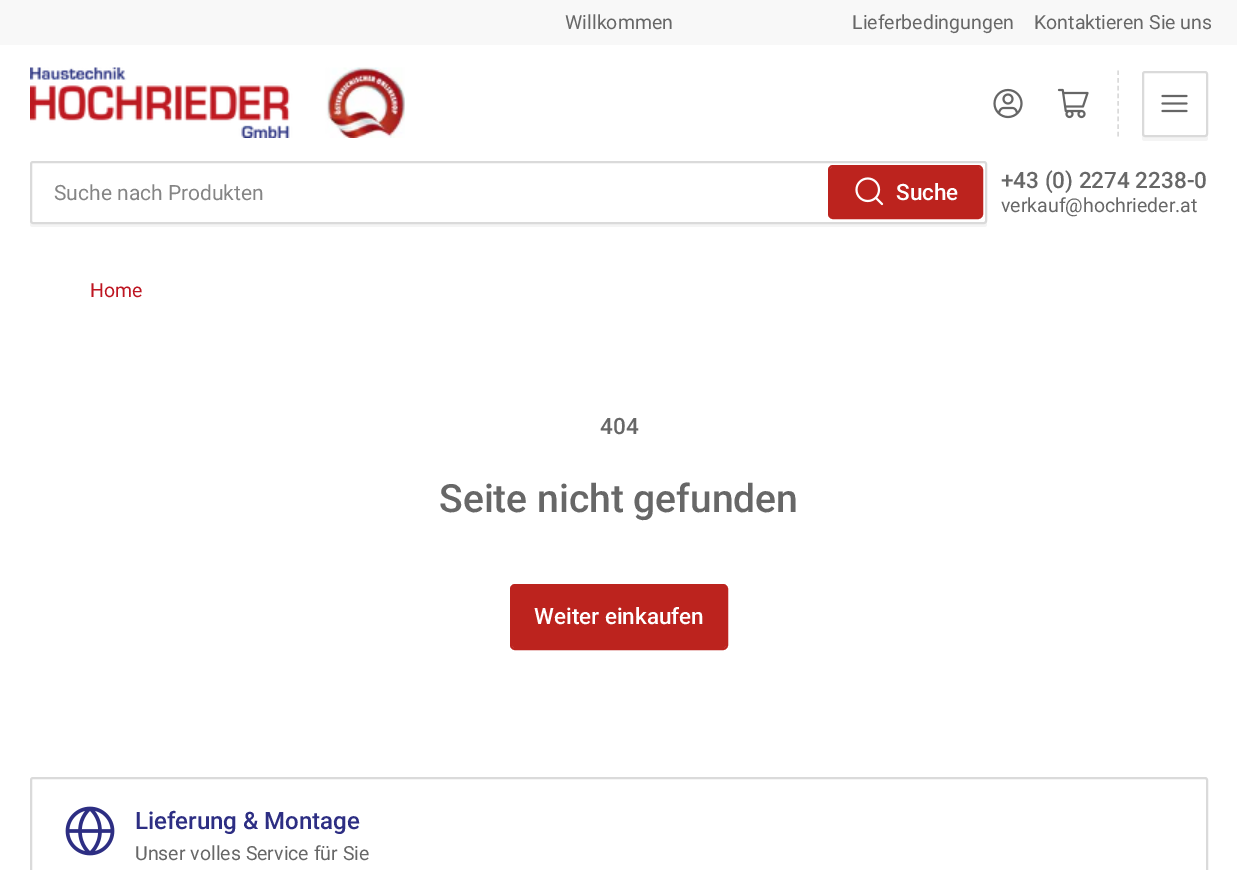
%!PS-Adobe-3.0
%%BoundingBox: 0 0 1237 870
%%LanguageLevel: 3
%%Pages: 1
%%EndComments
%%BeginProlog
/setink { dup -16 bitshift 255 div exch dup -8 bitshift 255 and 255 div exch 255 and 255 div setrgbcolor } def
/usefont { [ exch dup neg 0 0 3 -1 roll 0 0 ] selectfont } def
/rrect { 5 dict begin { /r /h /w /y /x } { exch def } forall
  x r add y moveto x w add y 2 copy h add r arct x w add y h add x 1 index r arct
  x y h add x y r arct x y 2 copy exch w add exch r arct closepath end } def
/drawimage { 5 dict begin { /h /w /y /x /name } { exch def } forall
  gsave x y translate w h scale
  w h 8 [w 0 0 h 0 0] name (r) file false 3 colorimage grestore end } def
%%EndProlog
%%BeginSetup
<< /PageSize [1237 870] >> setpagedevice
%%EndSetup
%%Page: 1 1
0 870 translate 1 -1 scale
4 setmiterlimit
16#FFFFFF setink
0 0 1237 870 rectfill
16#F8F8F8 setink
0 0 1237 45 rectfill
/Roboto-Regular 19.5 usefont
16#676767 setink
[
    [(Willkommen) 565 29]
    [(Lieferbedingungen) 852 29]
    [(Kontaktieren Sie uns) 1034 29]
] { aload pop moveto show } forall
(img1.raw) 30 67 375 71 drawimage
(img2.raw) 993 88 30 31 drawimage
(img3.raw) 1057 88 32 31 drawimage
16#DADADA setink
1.5 setlinewidth
[4.5 3.18] 0 setdash
1118 70.5 moveto 1118 136.5 lineto stroke
16#F4F4F4 setink
1142 135 moveto 1142 138 lineto 1142 140 1143 141 1145 141 curveto 1205 141 lineto 1207 141 1208 140 1208 138 curveto 1208 78 lineto 1208 76 lineto 1208 134 lineto 1208 135 1206 136 1204 136 curveto 1144 136 lineto 1143 136 1143 136 1142 135 curveto closepath fill
16#DADADA setink
2 setlinewidth
[] 0 setdash
1143 72 64 64 2 rrect stroke
(img4.raw) 1161 94 27 19 drawimage
16#F4F4F4 setink
30 220 moveto 30 224 lineto 30 226 31 227 33 227 curveto 984 227 lineto 986 227 987 226 987 224 curveto 987 220 lineto 987 222 986 224 984 224 curveto 33 224 lineto 31 224 30 222 30 220 curveto closepath fill
16#FFFFFF setink
31 162 955 61 2 rrect gsave fill grestore
16#DADADA setink
stroke
/Roboto-Regular 21 usefont
16#858585 setink
54 200 moveto (Suche nach Produkten) show
16#BC231E setink
829 166 153 52 4 rrect stroke
830 167 151 51 3 rrect fill
(img5.raw) 855 177 29 29 drawimage
/Roboto-Medium 22.5 usefont
16#FFFFFF setink
896 200 moveto (Suche) show
16#676767 setink
1001 188 moveto (+43 \(0\) 2274 2238-0) show
/Roboto-Regular 19.5 usefont
1001 212 moveto (verkauf@hochrieder.at) show
16#BE1622 setink
90 297 moveto (Home) show
/Roboto-Medium 22.5 usefont
16#676767 setink
600 434 moveto (404) show
/Roboto-Medium 39 usefont
439 512 moveto (Seite nicht gefunden) show
16#BC231E setink
511 585 216 64 4 rrect stroke
512 585 214 63 3 rrect fill
/Roboto-Medium 22.5 usefont
16#FFFFFF setink
534 624 moveto (Weiter einkaufen) show
16#DADADA setink
31 778 1176 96 2 rrect stroke
(img6.raw) 65 806 50 50 drawimage
/Roboto-Medium 24 usefont
16#2D2E83 setink
135 829 moveto (Lieferung & Montage) show
/Roboto-Regular 19.5 usefont
16#676767 setink
135 860 moveto (Unser volles Service für Sie) show
showpage
%%EOF
